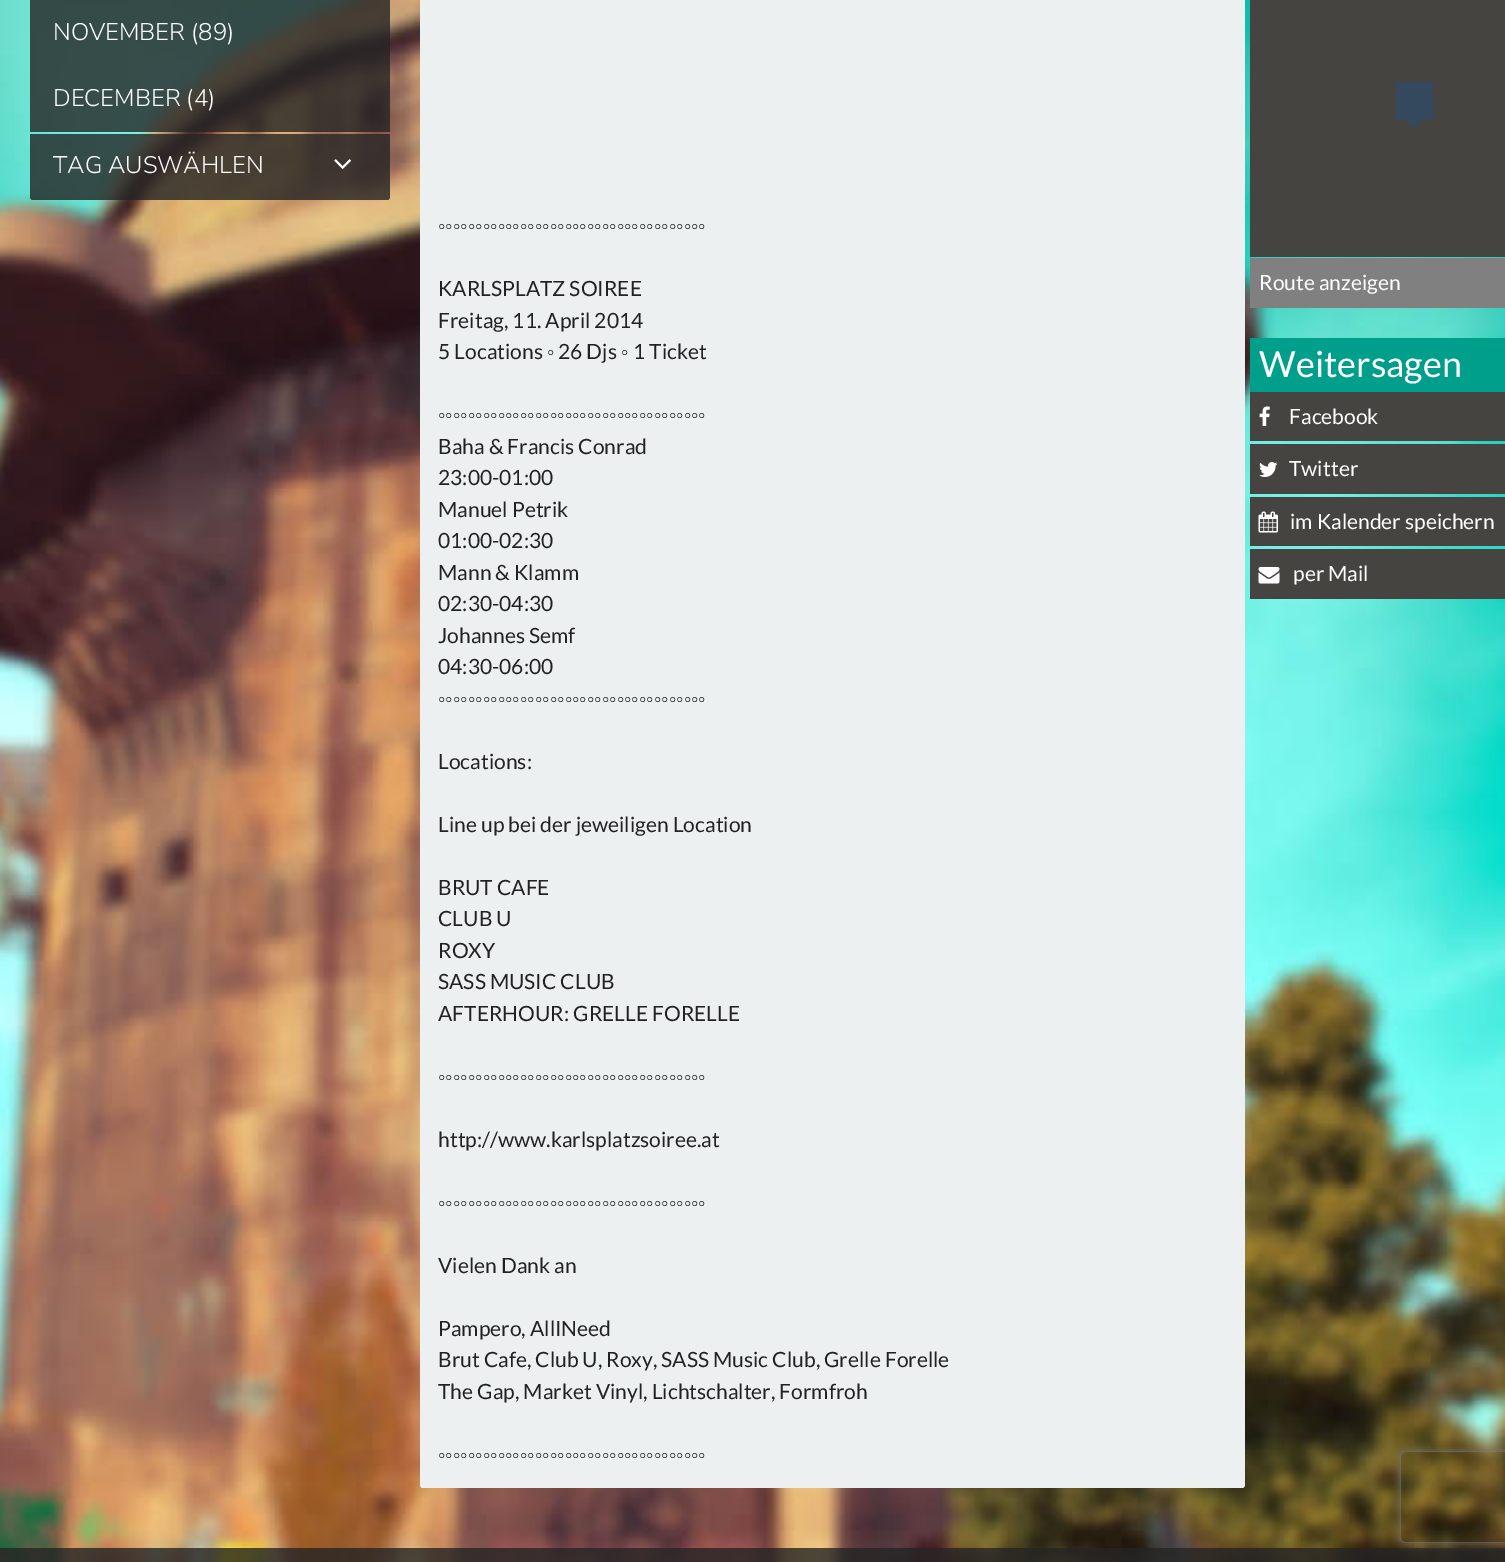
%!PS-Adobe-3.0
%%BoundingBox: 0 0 1505 1562
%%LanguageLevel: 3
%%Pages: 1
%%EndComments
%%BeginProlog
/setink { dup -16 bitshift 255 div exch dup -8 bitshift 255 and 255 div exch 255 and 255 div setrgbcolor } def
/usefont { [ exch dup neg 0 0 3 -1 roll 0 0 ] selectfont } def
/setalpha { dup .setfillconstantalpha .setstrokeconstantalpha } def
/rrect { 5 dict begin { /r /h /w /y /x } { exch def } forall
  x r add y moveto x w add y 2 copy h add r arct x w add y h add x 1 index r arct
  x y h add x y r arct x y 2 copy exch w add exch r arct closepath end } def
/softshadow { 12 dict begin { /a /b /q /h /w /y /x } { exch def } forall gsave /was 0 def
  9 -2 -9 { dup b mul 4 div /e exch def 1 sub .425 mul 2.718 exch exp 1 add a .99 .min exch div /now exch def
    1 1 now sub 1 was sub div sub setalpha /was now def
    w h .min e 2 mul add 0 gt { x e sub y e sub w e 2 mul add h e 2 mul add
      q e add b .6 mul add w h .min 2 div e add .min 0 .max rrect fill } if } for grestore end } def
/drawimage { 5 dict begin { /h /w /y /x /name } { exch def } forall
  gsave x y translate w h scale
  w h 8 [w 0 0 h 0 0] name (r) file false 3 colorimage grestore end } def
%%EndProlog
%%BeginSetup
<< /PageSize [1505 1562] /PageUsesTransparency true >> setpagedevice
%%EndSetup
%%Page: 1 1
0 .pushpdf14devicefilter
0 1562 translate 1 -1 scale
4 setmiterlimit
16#FFFFFF setink
0 0 1505 1562 rectfill
(img1.raw) 0 0 1505 1562 drawimage
0.8 setalpha
16#242424 setink
30 0 360 66 rectfill
/NunitoSans-Light 24 usefont
1 setalpha
16#FFFFFF setink
53 40 moveto (NOVEMBER \(89\)) show
0.8 setalpha
16#242424 setink
30 66 360 66 rectfill
1 setalpha
16#FFFFFF setink
53 106 moveto (DECEMBER \(4\)) show
0.8 setalpha
16#242424 setink
30 134 moveto 390 134 lineto 390 197 lineto 390 198.5 388.5 200 387 200 curveto 33 200 lineto 31.5 200 30 198.5 30 197 curveto closepath fill
1 setalpha
16#FFFFFF setink
53 173 moveto (TAG AUSWÄHLEN) show
(img2.raw) 334 159 17 10 drawimage
16#ECF0F1 setink
420 0 825 192 rectfill
420 192 moveto 1245 192 lineto 1245 1485 lineto 1245 1486.5 1243.5 1488 1242 1488 curveto 423 1488 lineto 421.5 1488 420 1486.5 420 1485 curveto closepath fill
/LiberationSans-Regular 21 usefont
16#222222 setink
438 233 moveto (◦◦◦◦◦◦◦◦◦◦◦◦◦◦◦◦◦◦◦◦◦◦◦◦◦◦◦◦◦◦◦◦◦◦◦◦) show
/Lato-Regular 21 usefont
[
    [(KARLSPLATZ SOIREE) 438 296]
    [(Freitag, 11. April 2014) 438 328]
    [(5 Locations) 438 359]
] { aload pop moveto show } forall
/LiberationSans-Regular 21 usefont
547 359 moveto (◦) show
/Lato-Regular 21 usefont
558 359 moveto (26 Djs) show
/LiberationSans-Regular 21 usefont
621 359 moveto (◦) show
/Lato-Regular 21 usefont
633 359 moveto (1 Ticket) show
/LiberationSans-Regular 21 usefont
438 422 moveto (◦◦◦◦◦◦◦◦◦◦◦◦◦◦◦◦◦◦◦◦◦◦◦◦◦◦◦◦◦◦◦◦◦◦◦◦) show
/Lato-Regular 21 usefont
[
    [(Baha & Francis Conrad) 438 454]
    [(23:00-01:00) 438 485]
    [(Manuel Petrik) 438 517]
    [(01:00-02:30) 438 548]
    [(Mann & Klamm) 438 580]
    [(02:30-04:30) 438 611]
    [(Johannes Semf) 438 643]
    [(04:30-06:00) 438 674]
] { aload pop moveto show } forall
/LiberationSans-Regular 21 usefont
438 706 moveto (◦◦◦◦◦◦◦◦◦◦◦◦◦◦◦◦◦◦◦◦◦◦◦◦◦◦◦◦◦◦◦◦◦◦◦◦) show
/Lato-Regular 21 usefont
[
    [(Locations:) 438 769]
    [(Line up bei der jeweiligen Location) 438 832]
    [(BRUT CAFE) 438 895]
    [(CLUB U) 438 926]
    [(ROXY) 438 958]
    [(SASS MUSIC CLUB) 438 989]
    [(AFTERHOUR: GRELLE FORELLE) 438 1021]
] { aload pop moveto show } forall
/LiberationSans-Regular 21 usefont
438 1084 moveto (◦◦◦◦◦◦◦◦◦◦◦◦◦◦◦◦◦◦◦◦◦◦◦◦◦◦◦◦◦◦◦◦◦◦◦◦) show
/Lato-Regular 21 usefont
438 1147 moveto (http://www.karlsplatzsoiree.at) show
/LiberationSans-Regular 21 usefont
438 1210 moveto (◦◦◦◦◦◦◦◦◦◦◦◦◦◦◦◦◦◦◦◦◦◦◦◦◦◦◦◦◦◦◦◦◦◦◦◦) show
/Lato-Regular 21 usefont
[
    [(Vielen Dank an) 438 1273]
    [(Pampero, AllINeed) 438 1336]
    [(Brut Cafe, Club U, Roxy, SASS Music Club, Grelle Forelle) 438 1367]
    [(The Gap, Market Vinyl, Lichtschalter, Formfroh) 438 1399]
] { aload pop moveto show } forall
/LiberationSans-Regular 21 usefont
438 1462 moveto (◦◦◦◦◦◦◦◦◦◦◦◦◦◦◦◦◦◦◦◦◦◦◦◦◦◦◦◦◦◦◦◦◦◦◦◦) show
16#454440 setink
1250 0 255 257 rectfill
(img3.raw) 1395 82 39 47 drawimage
16#808080 setink
1250 258 255 50 rectfill
/Lato-Regular 21 usefont
16#FFFFFF setink
1259 290 moveto (Route anzeigen) show
16#009F8B setink
1250 338 255 54 rectfill
/Lato-Regular 36 usefont
16#FFFFFF setink
1259 377 moveto (Weitersagen) show
16#454440 setink
1250 392 255 49 rectfill
(img4.raw) 1259 406 11 20 drawimage
/Lato-Regular 21 usefont
16#FFFFFF setink
1289 424 moveto (Facebook) show
16#454440 setink
1250 444 255 50 rectfill
(img5.raw) 1259 462 19 15 drawimage
16#FFFFFF setink
1289 476 moveto (Twitter) show
16#454440 setink
1250 497 255 49 rectfill
(img6.raw) 1258 511 20 22 drawimage
16#FFFFFF setink
1290 529 moveto (im Kalender speichern) show
16#454440 setink
1250 549 255 50 rectfill
(img7.raw) 1258 567 22 17 drawimage
16#FFFFFF setink
1293 581 moveto (per Mail) show
0.8 setalpha
16#242424 setink
0 1548 1505 14 rectfill
gsave
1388 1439 moveto 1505 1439 lineto 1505 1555 lineto 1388 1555 lineto closepath 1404 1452 moveto 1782 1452 lineto 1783.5 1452 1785 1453.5 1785 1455 curveto 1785 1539 lineto 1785 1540.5 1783.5 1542 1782 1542 curveto 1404 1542 lineto 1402.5 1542 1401 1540.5 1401 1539 curveto 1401 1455 lineto 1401 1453.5 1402.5 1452 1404 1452 curveto closepath eoclip newpath
1 setalpha
16#808080 setink
1401 1452 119 90 3 4 1 softshadow
grestore
.poppdf14devicefilter showpage
%%EOF
